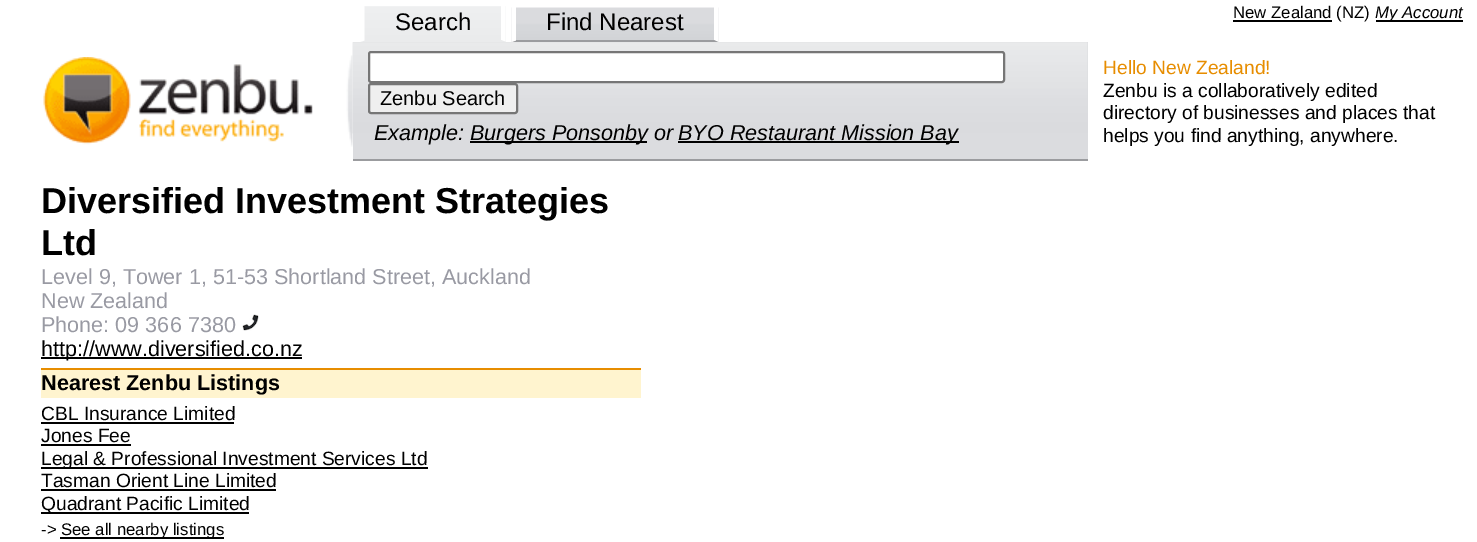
%!PS-Adobe-3.0
%%BoundingBox: 0 0 1477 542
%%LanguageLevel: 3
%%Pages: 1
%%EndComments
%%BeginProlog
/setink { dup -16 bitshift 255 div exch dup -8 bitshift 255 and 255 div exch 255 and 255 div setrgbcolor } def
/usefont { [ exch dup neg 0 0 3 -1 roll 0 0 ] selectfont } def
/rrect { 5 dict begin { /r /h /w /y /x } { exch def } forall
  x r add y moveto x w add y 2 copy h add r arct x w add y h add x 1 index r arct
  x y h add x y r arct x y 2 copy exch w add exch r arct closepath end } def
/drawimage { 5 dict begin { /h /w /y /x /name } { exch def } forall
  gsave x y translate w h scale
  w h 8 [w 0 0 h 0 0] name (r) file false 3 colorimage grestore end } def
%%EndProlog
%%BeginSetup
<< /PageSize [1477 542] >> setpagedevice
%%EndSetup
%%Page: 1 1
0 542 translate 1 -1 scale
4 setmiterlimit
16#FFFFFF setink
0 0 1477 542 rectfill
16#000000 setink
1233 20 99 2 rectfill
/LiberationSans-Regular 16.75 usefont
1233 18 moveto (New Zealand \(NZ\)) show
1376 20 87 2 rectfill
/LiberationSans-Italic 16.75 usefont
1375 18 moveto (My Account) show
(img1.raw) 360 6 146 36 drawimage
(img2.raw) 511 7 208 35 drawimage
/LiberationSans-Regular 24 usefont
395 30 moveto (Search) show
16#FFFFFF setink
505.5 3 moveto 505.5 42 lineto 501 40.5 lineto 501 3 lineto closepath fill
16#EAEBEC setink
506 42 moveto 360 42 lineto 364 40 lineto 501 40 lineto closepath fill
16#FFFFFF setink
360 42 moveto 360 3 lineto 364.5 3 lineto 364.5 40.5 lineto closepath fill
16#000000 setink
546 30 moveto (Find Nearest) show
16#FFFFFF setink
718.5 3 moveto 718.5 42 lineto 714 40.5 lineto 714 3 lineto closepath fill
16#9B9C9F setink
718 42 moveto 512 42 lineto 516 40 lineto 714 40 lineto closepath fill
16#FFFFFF setink
511.5 42 moveto 511.5 3 lineto 516 3 lineto 516 40.5 lineto closepath fill
(img3.raw) 346 55 7 92 drawimage
(img4.raw) 43 57 270 88 drawimage
16#DBDCDF setink
353 42 735 117 rectfill
(img5.raw) 352 42 736 92 drawimage
16#9B9C9F setink
353 159 735 2 rectfill
16#FFFFFF setink
369 52 635 30 2 rrect gsave fill grestore
16#767676 setink
2 setlinewidth
stroke
16#EFEFEF setink
369 84 148 29 2 rrect gsave fill grestore
16#767676 setink
stroke
/LiberationSans-Regular 20 usefont
16#000000 setink
380 105 moveto (Zenbu Search) show
/LiberationSans-Italic 21.6 usefont
374 140 moveto (Example:) show
470 141 177 2 rectfill
470 140 moveto (Burgers Ponsonby or) show
678 141 281 2 rectfill
678 140 moveto (BYO Restaurant Mission Bay) show
/LiberationSans-Regular 19.2 usefont
16#E78D00 setink
1103 74 moveto (Hello New Zealand!) show
16#000000 setink
[
    [(Zenbu is a collaboratively edited) 1103 97]
    [(directory of businesses and places that) 1103 119]
    [(helps you find anything, anywhere.) 1103 142]
] { aload pop moveto show } forall
/LiberationSans-Bold 36 usefont
41 213 moveto (Diversified Investment Strategies) show
41 255 moveto (Ltd) show
/LiberationSans-Regular 21.6 usefont
16#999AA3 setink
[
    [(Level 9, Tower 1, 51-53 Shortland Street, Auckland) 41 284]
    [(New Zealand) 41 308]
    [(Phone: 09 366 7380) 41 332]
] { aload pop moveto show } forall
(img6.raw) 242 314 17 17 drawimage
16#000000 setink
41 357 261 2 rectfill
41 356 moveto (http://www.diversified.co.nz) show
16#FFF4CF setink
41 370 600 28 rectfill
16#E78D00 setink
41 368 600 2 rectfill
/LiberationSans-Bold 21.6 usefont
16#000000 setink
41 390 moveto (Nearest Zenbu Listings) show
/LiberationSans-Regular 19.2 usefont
41 420 moveto (CBL Insurance Limited) show
41 422 193 2 rectfill
41 442 moveto (Jones Fee) show
41 444 90 2 rectfill
41 467 387 2 rectfill
41 465 moveto (Legal & Professional Investment Services Ltd) show
41 487 moveto (Tasman Orient Line Limited) show
41 489 235 2 rectfill
41 512 208 2 rectfill
41 510 moveto (Quadrant Pacific Limited) show
/LiberationSans-Regular 16.75 usefont
41 535 moveto (->) show
60 537 164 2 rectfill
61 535 moveto (See all nearby listings) show
showpage
%%EOF
